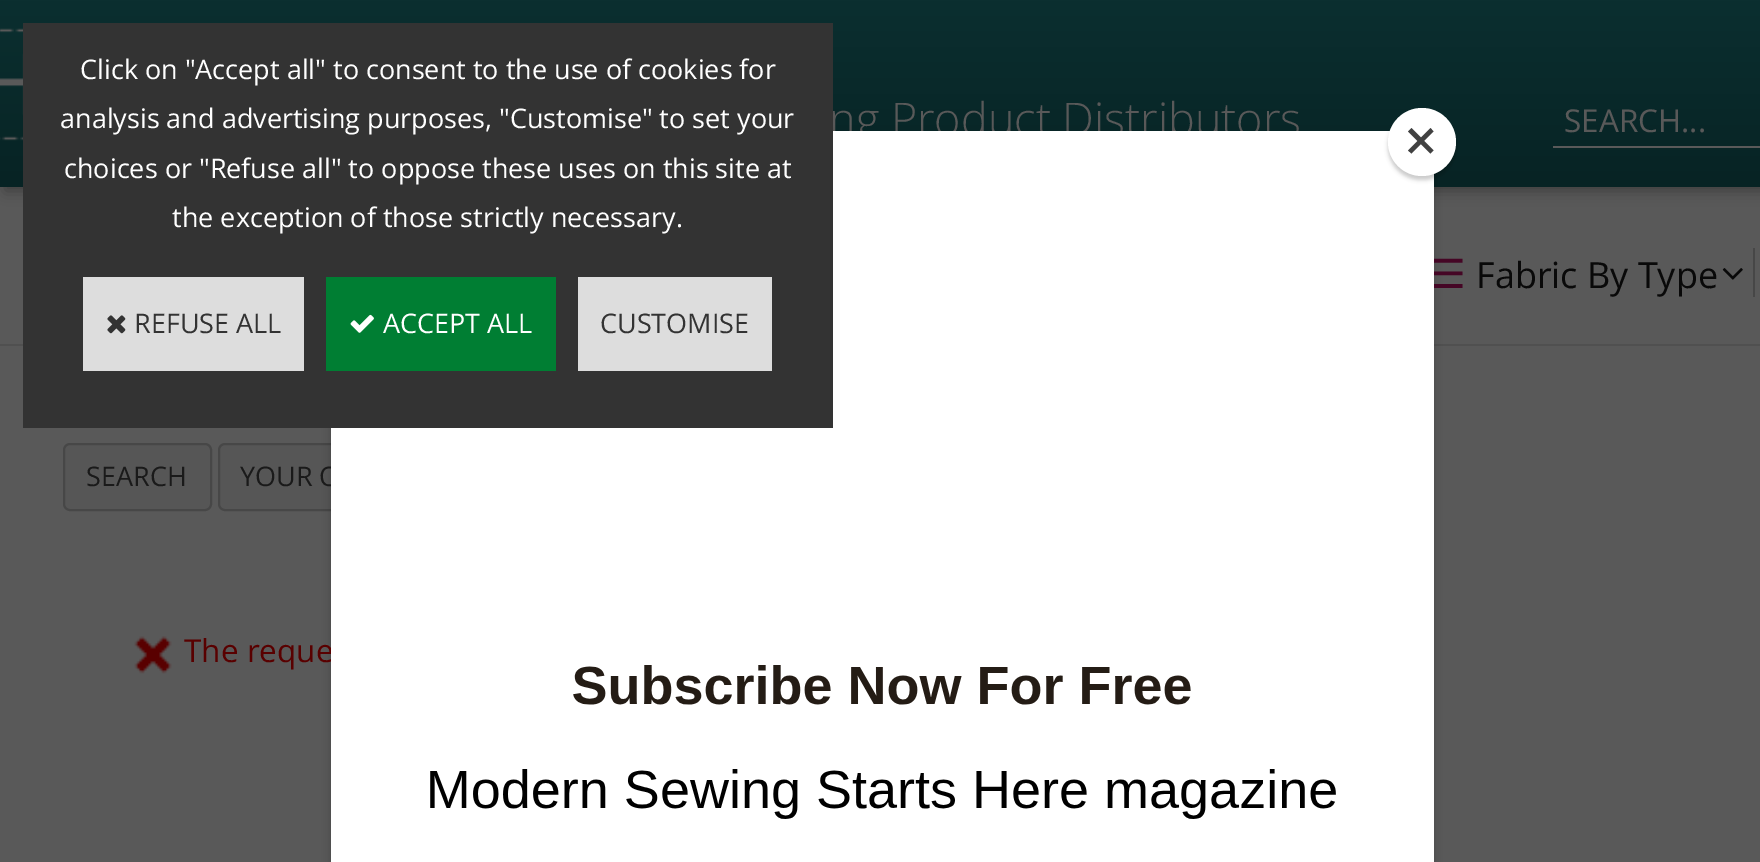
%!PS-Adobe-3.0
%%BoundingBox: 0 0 1760 862
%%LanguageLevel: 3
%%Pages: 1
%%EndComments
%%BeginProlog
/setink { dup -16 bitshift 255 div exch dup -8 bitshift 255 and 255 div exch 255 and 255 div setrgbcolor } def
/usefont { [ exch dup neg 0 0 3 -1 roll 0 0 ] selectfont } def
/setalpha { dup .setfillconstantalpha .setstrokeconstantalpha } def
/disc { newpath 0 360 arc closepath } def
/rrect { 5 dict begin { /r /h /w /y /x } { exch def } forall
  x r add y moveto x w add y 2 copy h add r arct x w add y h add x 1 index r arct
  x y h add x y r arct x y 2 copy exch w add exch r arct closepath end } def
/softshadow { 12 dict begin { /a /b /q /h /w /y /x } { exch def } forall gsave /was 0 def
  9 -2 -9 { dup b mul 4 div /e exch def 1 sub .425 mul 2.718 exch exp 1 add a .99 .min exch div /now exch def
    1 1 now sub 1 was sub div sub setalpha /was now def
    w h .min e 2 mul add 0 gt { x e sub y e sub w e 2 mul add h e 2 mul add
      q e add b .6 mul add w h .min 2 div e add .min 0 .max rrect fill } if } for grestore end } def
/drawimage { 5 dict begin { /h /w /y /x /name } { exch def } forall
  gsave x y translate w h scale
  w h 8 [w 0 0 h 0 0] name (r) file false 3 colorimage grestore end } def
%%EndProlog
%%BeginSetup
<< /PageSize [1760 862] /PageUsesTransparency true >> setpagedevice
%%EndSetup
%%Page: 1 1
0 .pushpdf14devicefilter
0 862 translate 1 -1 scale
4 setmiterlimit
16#595959 setink
0 0 1760 862 rectfill
16#3D3D3D setink
5 14 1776 177 0 7 1 softshadow
gsave 0 0 moveto 1760 0 lineto 1760 187 lineto 0 187 lineto closepath clip newpath
<< /ShadingType 2 /ColorSpace /DeviceRGB /Coords [1202 187 1202 0] /Extend [true true] /Function << /FunctionType 2 /Domain [0 1] /C0 [0.027 0.137 0.141] /C1 [0.043 0.184 0.188] /N 1 >> >> shfill grestore
/OpenSans-Light 45 usefont
16#595959 setink
829 135 moveto (ng Product Distributors) show
16#505050 setink
0 344 1760 2 rectfill
16#565656 setink
219 444 214 66 6 rrect gsave fill grestore
16#474747 setink
2 setlinewidth
stroke
16#000000 setink
331 135 1102 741 0 4.5 0.2 softshadow
/DejaVuSans-Regular 40 usefont
16#450625 setink
1430 288 moveto (☰) show
/OpenSans-Regular 27 usefont
16#1A1A1A setink
240 486 moveto (YOUR O) show
/OpenSans-Regular 31.5 usefont
16#590000 setink
184 662 moveto (The reque) show
(img6.raw) 331 131 1103 731 drawimage
16#333333 setink
23 23 810 405 rectfill
/OpenSans-Regular 27 usefont
16#FFFFFF setink
[
    [(Click on "Accept all" to consent to the use of cookies for) 80 79]
    [(analysis and advertising purposes, "Customise" to set your) 60 128]
    [(choices or "Refuse all" to oppose these uses on this site at) 64 178]
    [(the exception of those strictly necessary.) 172 227]
] { aload pop moveto show } forall
16#DDDDDD setink
83 277 221 94 rectfill
(img1.raw) 107 315 19 19 drawimage
16#333333 setink
134 333 moveto (REFUSE ALL) show
16#007E33 setink
326 277 230 94 rectfill
(img2.raw) 350 314 24 19 drawimage
16#FFFFFF setink
383 333 moveto (ACCEPT ALL) show
16#DDDDDD setink
578 277 194 94 rectfill
16#333333 setink
600 333 moveto (CUSTOMISE) show
(img3.raw) 0 28 23 113 drawimage
16#595959 setink
1553 146 207 2 rectfill
/OpenSans-Regular 31.5 usefont
1564 132 moveto (SEARCH...) show
16#474747 setink
1753 248 2 49 rectfill
/OpenSans-Regular 36 usefont
16#090909 setink
1476 288 moveto (Fabric By Type) show
(img4.raw) 1722 268 21 12 drawimage
16#565656 setink
64 444 147 66 6 rrect gsave fill grestore
16#474747 setink
stroke
/OpenSans-Regular 27 usefont
16#1A1A1A setink
86 486 moveto (SEARCH) show
(img5.raw) 134 636 38 38 drawimage
16#000000 setink
1388 113 68 67 33.5 2 0.2 softshadow
16#FFFFFF setink
1422 142 34 disc fill
16#414141 setink
1430.5 128 moveto 1433.5 131.5 lineto 1411.5 153.5 lineto 1408 150.5 lineto closepath fill
1408 131.5 moveto 1411.5 128 lineto 1433.5 150.5 lineto 1430.5 153.5 lineto closepath fill
.poppdf14devicefilter showpage
%%EOF
